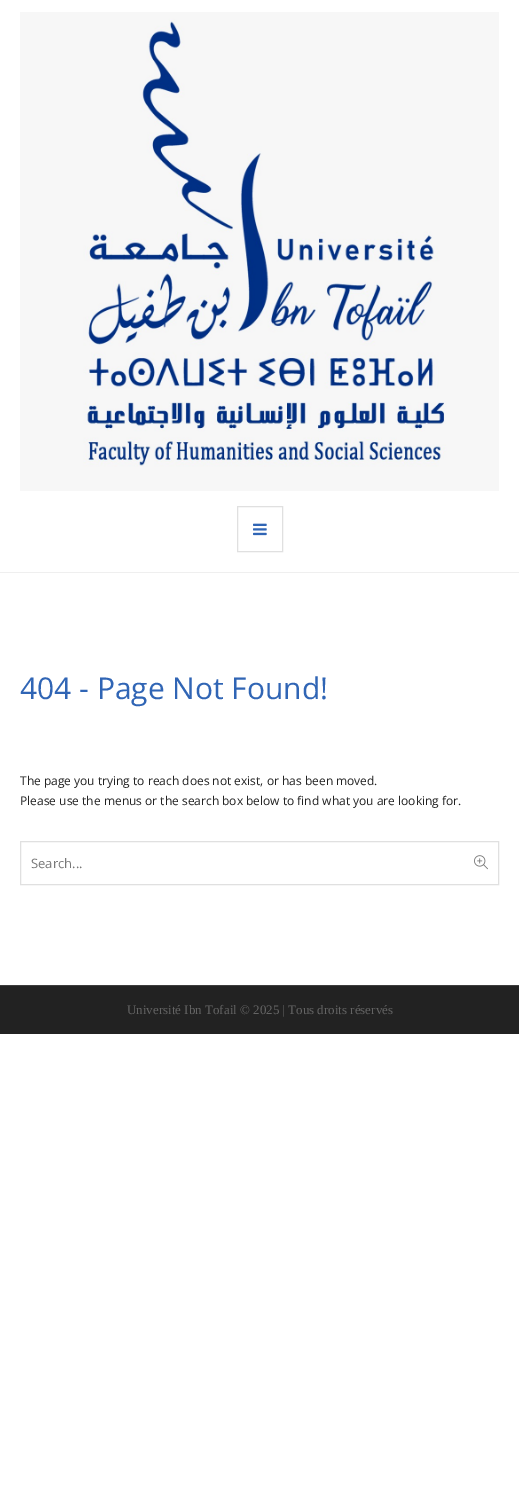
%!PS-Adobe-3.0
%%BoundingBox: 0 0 519 1496
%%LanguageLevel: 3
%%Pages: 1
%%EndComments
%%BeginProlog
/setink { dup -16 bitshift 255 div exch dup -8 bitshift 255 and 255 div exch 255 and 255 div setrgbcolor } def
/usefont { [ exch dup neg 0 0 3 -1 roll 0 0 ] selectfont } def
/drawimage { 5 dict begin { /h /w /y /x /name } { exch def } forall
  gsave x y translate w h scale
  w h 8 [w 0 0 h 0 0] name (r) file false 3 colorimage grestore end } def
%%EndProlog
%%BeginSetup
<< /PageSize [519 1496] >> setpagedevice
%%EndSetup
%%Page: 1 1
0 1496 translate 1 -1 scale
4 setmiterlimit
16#FFFFFF setink
0 0 519 1496 rectfill
16#EFEFEF setink
0 572 519 1 rectfill
(img1.raw) 20 12 479 479 drawimage
16#E0E0E0 setink
237.5 506.5 45 45 rectstroke
(img2.raw) 253 523 14 13 drawimage
/OpenSans-Regular 30 usefont
16#3065B5 setink
20 699 moveto (404 - Page Not Found!) show
/OpenSans-Regular 12 usefont
16#222222 setink
20 785 moveto (The page you trying to reach does not exist, or has been moved.) show
20 805 moveto (Please use the menus or the search box below to find what you are looking for.) show
16#E0E0E0 setink
20.5 841.5 478 43 rectstroke
/OpenSans-Regular 13 usefont
16#787878 setink
31 868 moveto (Search...) show
(img3.raw) 474 855 14 15 drawimage
16#222222 setink
0 986 519 48 rectfill
16#3D3D3D setink
0 985 519 1 rectfill
/LiberationSerif-Regular 13 usefont
16#646464 setink
127 1014 moveto (Université Ibn Tofail © 2025 | Tous droits réservés) show
showpage
%%EOF
